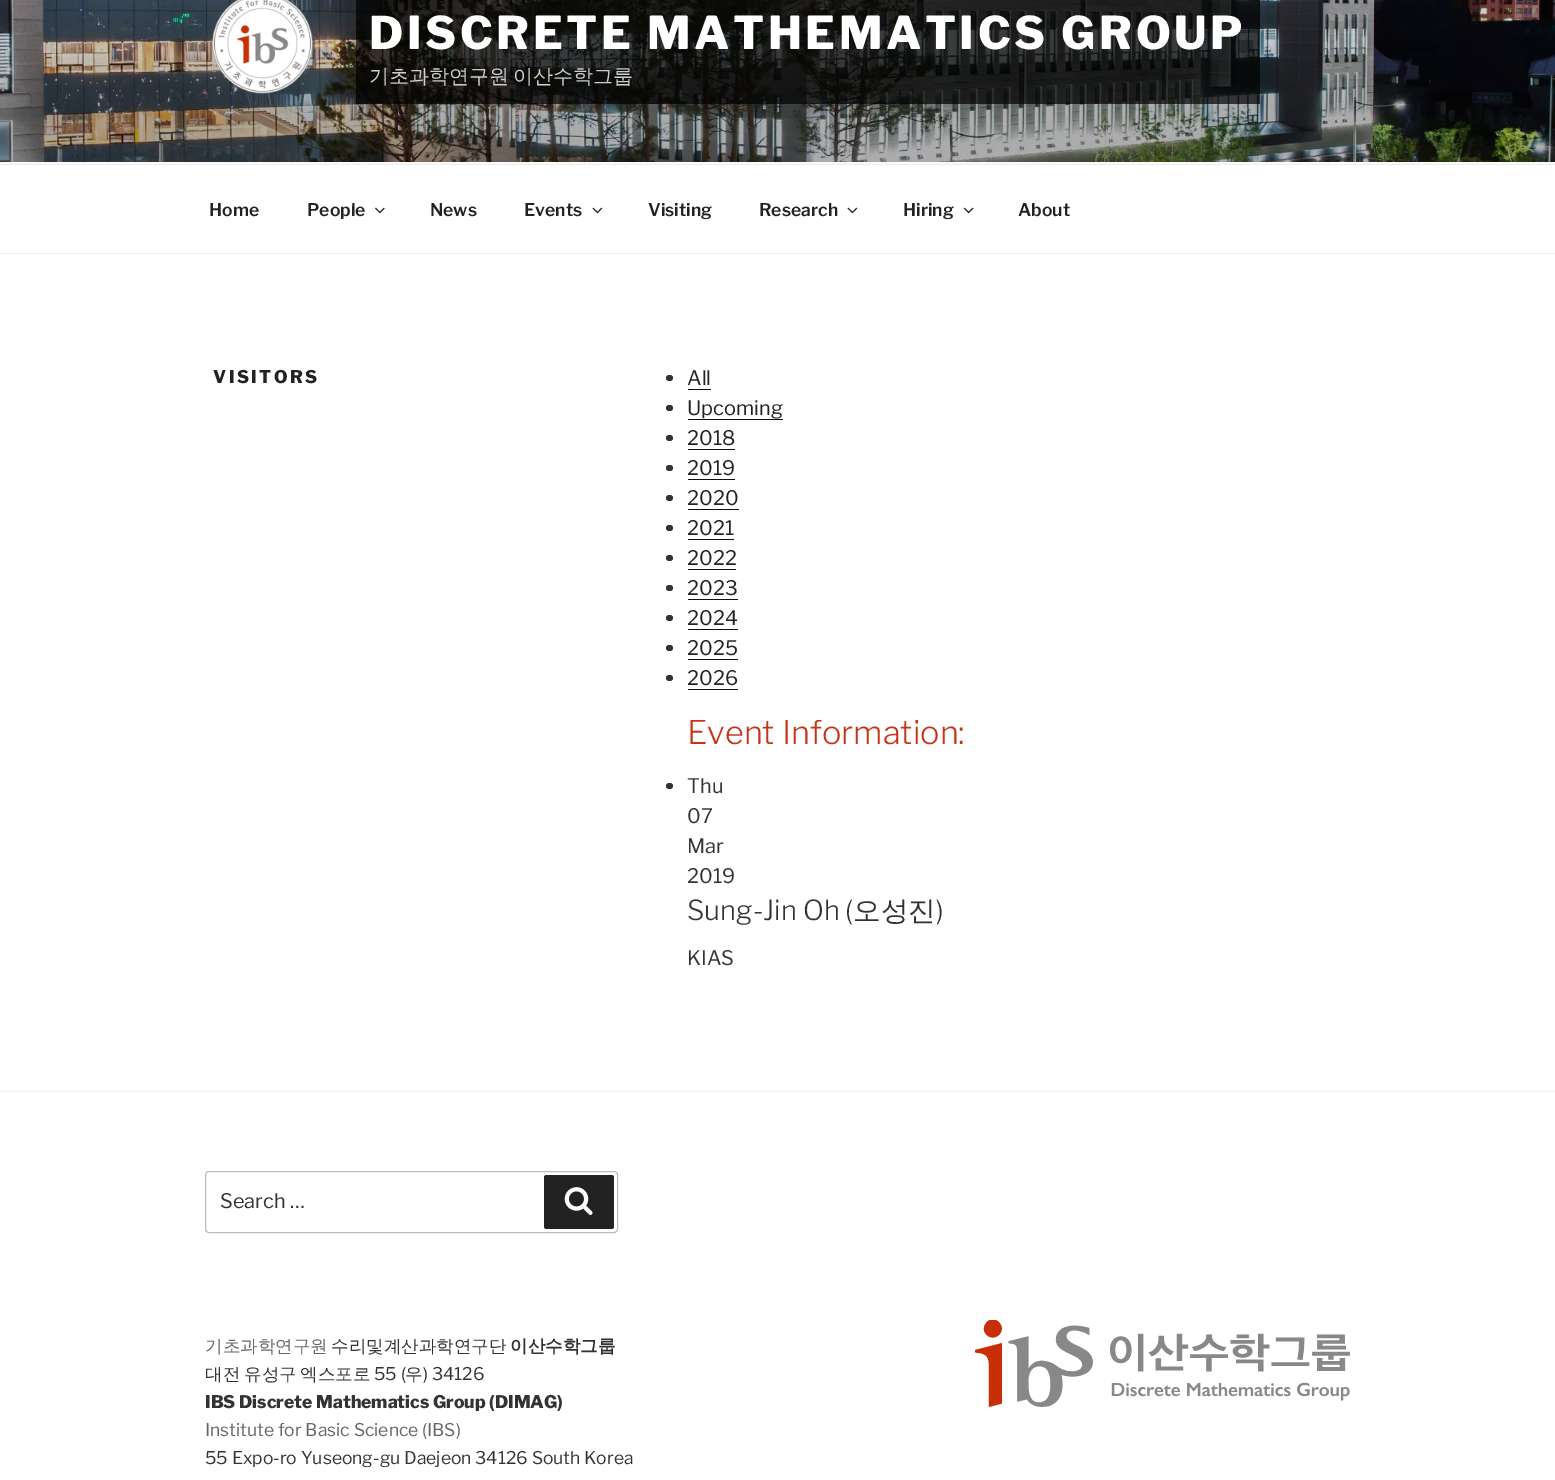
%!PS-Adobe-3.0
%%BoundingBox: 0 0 1555 1480
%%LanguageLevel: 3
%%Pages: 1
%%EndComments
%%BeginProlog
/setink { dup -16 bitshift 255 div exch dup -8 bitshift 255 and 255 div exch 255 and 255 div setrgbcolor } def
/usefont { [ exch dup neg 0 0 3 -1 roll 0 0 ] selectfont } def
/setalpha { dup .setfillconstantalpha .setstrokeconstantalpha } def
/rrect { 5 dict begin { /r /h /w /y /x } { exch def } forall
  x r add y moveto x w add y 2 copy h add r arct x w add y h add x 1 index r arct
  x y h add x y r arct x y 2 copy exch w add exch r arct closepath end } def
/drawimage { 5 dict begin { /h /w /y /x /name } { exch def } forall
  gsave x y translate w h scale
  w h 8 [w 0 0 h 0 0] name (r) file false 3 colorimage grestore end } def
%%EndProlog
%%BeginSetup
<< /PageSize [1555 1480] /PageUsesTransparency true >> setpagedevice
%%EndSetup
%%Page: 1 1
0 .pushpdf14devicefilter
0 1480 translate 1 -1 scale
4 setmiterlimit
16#FFFFFF setink
0 0 1555 1480 rectfill
16#FAFAFA setink
0 162 1555 2 rectfill
(img1.raw) 0 0 1555 162 drawimage
(img2.raw) 212 0 101 94 drawimage
0.7 setalpha
16#000000 setink
356 0 904 104 rectfill
/LibreFranklin-Thin 45 usefont
1 setalpha
16#FFFFFF setink
369 49 moveto 3.6 0 (DISCRETE MATHEMATICS GROUP) ashow
/WenQuanYiZenHei-Medium 20 usefont
16#CFCFCF setink
369 83 moveto -2 0 32 (기초과학연구원 이산수학그룹) widthshow
16#EEEEEE setink
0 164 1555 1 rectfill
0 253 1555 1 rectfill
/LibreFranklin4-Thin 17.5 usefont
16#222222 setink
209 216 moveto (Home) show
307 216 moveto (People) show
(img3.raw) 375 207 10 7 drawimage
430 216 moveto (News) show
524 216 moveto (Events) show
(img4.raw) 592 207 11 7 drawimage
648 216 moveto (Visiting) show
759 216 moveto (Research) show
(img4.raw) 847 207 11 7 drawimage
903 216 moveto (Hiring) show
(img5.raw) 963 207 11 7 drawimage
1018 216 moveto (About) show
/LibreFranklin-Thin 17.5 usefont
213 383 moveto 2.5 0 (VISITORS) ashow
16#333333 setink
666 375 7 6 3 rrect fill
/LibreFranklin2-Thin 20 usefont
16#222222 setink
687 385 moveto (All) show
16#0F0F0F setink
688 389 23 1 rectfill
16#333333 setink
666 405 7 6 3 rrect fill
16#222222 setink
687 415 moveto (Upcoming) show
16#0F0F0F setink
688 419 95 1 rectfill
16#333333 setink
666 435 7 6 3 rrect fill
16#222222 setink
687 445 moveto (2018) show
16#0F0F0F setink
688 449 47 1 rectfill
16#333333 setink
666 465 7 6 3 rrect fill
16#222222 setink
687 475 moveto (2019) show
16#0F0F0F setink
688 479 47 1 rectfill
16#333333 setink
666 495 7 6 3 rrect fill
16#222222 setink
687 505 moveto (2020) show
16#0F0F0F setink
688 509 51 1 rectfill
16#333333 setink
666 525 7 6 3 rrect fill
16#222222 setink
687 535 moveto (2021) show
16#0F0F0F setink
688 539 46 1 rectfill
16#333333 setink
666 555 7 6 3 rrect fill
16#222222 setink
687 565 moveto (2022) show
16#0F0F0F setink
688 569 48 1 rectfill
16#333333 setink
666 585 7 6 3 rrect fill
16#222222 setink
687 595 moveto (2023) show
16#0F0F0F setink
688 599 50 1 rectfill
16#333333 setink
666 615 7 6 3 rrect fill
16#222222 setink
687 625 moveto (2024) show
16#0F0F0F setink
688 629 50 1 rectfill
16#333333 setink
666 645 7 6 3 rrect fill
16#222222 setink
687 655 moveto (2025) show
16#0F0F0F setink
688 659 50 1 rectfill
16#333333 setink
666 675 7 6 3 rrect fill
16#222222 setink
687 685 moveto (2026) show
16#0F0F0F setink
688 689 50 1 rectfill
/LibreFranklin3-Thin 32.5 usefont
16#C63418 setink
687 744 moveto (Event Information:) show
16#333333 setink
666 783 7 6 3 rrect fill
/LibreFranklin2-Thin 20 usefont
[
    [(Thu) 687 793]
    [(07) 687 823]
    [(Mar) 687 853]
    [(2019) 687 883]
] { aload pop moveto show } forall
/LibreFranklin3-Thin 27.5 usefont
687 920 moveto (Sung-Jin Oh \() show
/WenQuanYiZenHei-Medium 27.5 usefont
853 920 moveto (오성진) show
/LibreFranklin3-Thin 27.5 usefont
936 920 moveto (\)) show
/LibreFranklin2-Thin 20 usefont
687 965 moveto (KIAS) show
16#EEEEEE setink
0 1091 1555 1 rectfill
16#BBBBBB setink
205.5 1171.5 412 61 3.5 rrect stroke
16#333333 setink
220 1208 moveto (Search …) show
16#222222 setink
544 1175 70 54 2.5 rrect fill
(img6.raw) 564 1187 29 28 drawimage
/WenQuanYiZenHei-Medium 17.5 usefont
16#666666 setink
205 1352 moveto (기초과학연구원) show
16#333333 setink
331 1352 moveto (수리및계산과학연구단) show
/WenQuanYiZenHei-Bold 17.5 usefont
510 1352 moveto (이산수학그룹) show
/WenQuanYiZenHei-Medium 17.5 usefont
[
    [(대전) 205 1380]
    [(유성구) 244 1380]
    [(엑스포로) 300 1380]
] { aload pop moveto show } forall
/LibreFranklin2-Thin 17.5 usefont
374 1380 moveto (55 \() show
/WenQuanYiZenHei-Medium 17.5 usefont
405 1380 moveto (우) show
/LibreFranklin2-Thin 17.5 usefont
423 1380 moveto (\) 34126) show
/LibreFranklin-Thin 17.5 usefont
205 1408 moveto (IBS Discrete Mathematics Group \(DIMAG\)) show
/LibreFranklin2-Thin 17.5 usefont
16#666666 setink
205 1436 moveto (Institute for Basic Science \(IBS\)) show
16#333333 setink
205 1464 moveto (55 Expo-ro Yuseong-gu Daejeon 34126 South Korea) show
(img7.raw) 975 1320 375 87 drawimage
.poppdf14devicefilter showpage
%%EOF
